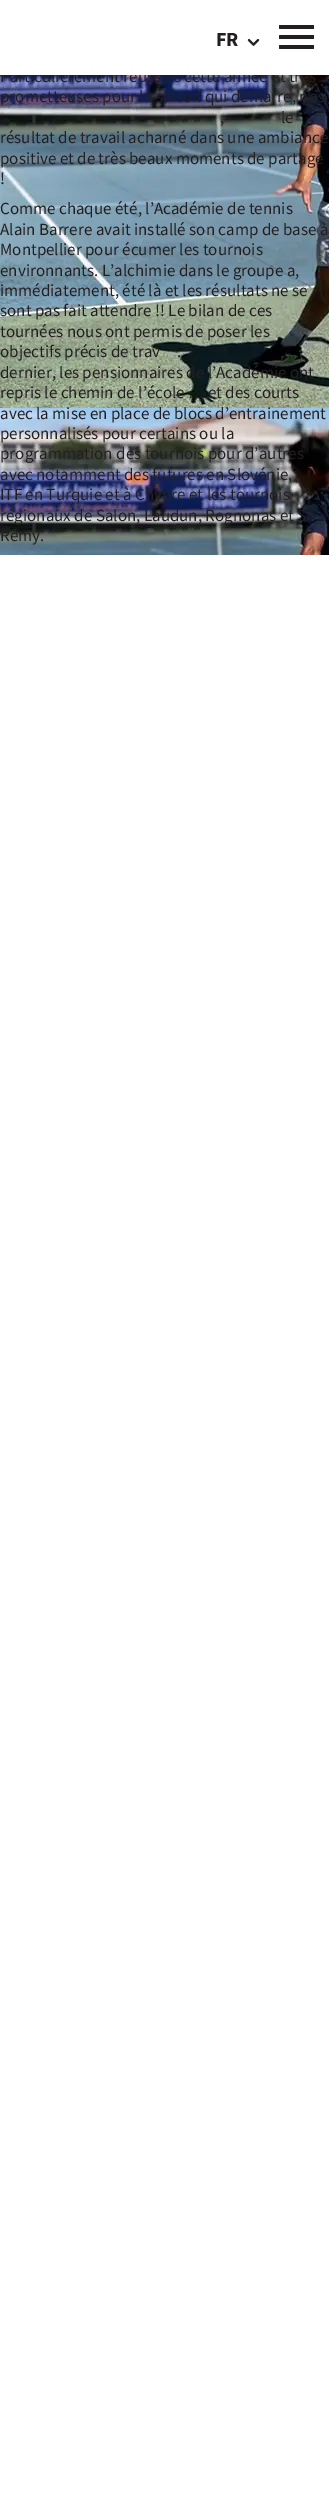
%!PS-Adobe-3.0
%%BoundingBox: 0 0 329 2519
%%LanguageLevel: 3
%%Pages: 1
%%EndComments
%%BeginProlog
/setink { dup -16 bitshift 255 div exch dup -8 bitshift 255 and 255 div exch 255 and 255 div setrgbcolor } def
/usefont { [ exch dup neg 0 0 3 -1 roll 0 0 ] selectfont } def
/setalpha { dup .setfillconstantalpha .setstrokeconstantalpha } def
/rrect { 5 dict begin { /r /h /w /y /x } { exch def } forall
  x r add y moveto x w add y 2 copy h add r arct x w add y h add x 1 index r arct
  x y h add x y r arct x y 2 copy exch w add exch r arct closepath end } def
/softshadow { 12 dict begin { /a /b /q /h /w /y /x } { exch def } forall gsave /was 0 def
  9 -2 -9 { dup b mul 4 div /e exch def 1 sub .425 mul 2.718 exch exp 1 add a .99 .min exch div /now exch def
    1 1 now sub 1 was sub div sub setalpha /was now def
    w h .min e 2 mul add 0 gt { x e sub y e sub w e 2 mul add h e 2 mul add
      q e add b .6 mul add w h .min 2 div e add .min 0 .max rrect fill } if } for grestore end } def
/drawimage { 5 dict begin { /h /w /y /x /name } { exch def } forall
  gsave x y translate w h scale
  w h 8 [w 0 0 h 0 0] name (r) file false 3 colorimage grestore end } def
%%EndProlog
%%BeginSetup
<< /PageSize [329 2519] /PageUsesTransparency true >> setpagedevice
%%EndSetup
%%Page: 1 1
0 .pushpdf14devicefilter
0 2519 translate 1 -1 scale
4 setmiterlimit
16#FFFFFF setink
0 0 329 2519 rectfill
(img2.raw) 0 75 329 480 drawimage
16#000000 setink
0 0 329 75 0 5 0.2 softshadow
/SourceSansPro-Regular 17 usefont
16#231F20 setink
0 82 moveto (Particulièrement réussies cette année et très) show
16#FFFFFF setink
0 0 329 75 rectfill
16#231F20 setink
279 35 35 4 1 rrect fill
279 25 35 4 1 rrect fill
279 45 35 4 1 rrect fill
/SourceSansPro-Bold 20 usefont
216 46 moveto (FR) show
(img1.raw) 247 39 13 7 drawimage
/SourceSansPro-Regular 17 usefont
[
    [(prometteuses pour la saison qui démarre, nos) 0 102]
    [(,) 220 123]
    [(le) 281 123]
    [(résultat de travail acharné dans une ambiance) 0 143]
    [(positive et de très beaux moments de partage) 0 164]
    [(!) 0 184]
    [(Comme chaque été, l’Académie de tennis) 0 214]
    [(Alain Barrere avait installé son camp de base à) 0 235]
    [(Montpellier pour écumer les tournois) 0 255]
    [(environnants. L’alchimie dans le groupe a,) 0 276]
    [(immédiatement, été là et les résultats ne se) 0 296]
    [(sont pas fait attendre !! Le bilan de ces) 0 316]
    [(tournées nous ont permis de poser les) 0 337]
    [(objectifs précis de trav) 0 357]
    [(.) 177 357]
    [(dernier, les pensionnaires de l’Académie ont) 0 378]
    [(repris le chemin de l’école … et des courts) 0 398]
    [(avec la mise en place de blocs d’entrainement) 0 419]
    [(personnalisés pour certains ou la) 0 439]
    [(programmation des tournois pour d’autres) 0 459]
    [(avec notamment des futures en Slovénie,) 0 480]
    [(ITF en Turquie et à Chypre et les tournois) 0 500]
    [(régionaux de Salon, Laudun, Rognonas et S) 0 521]
    [(Rémy.) 0 541]
] { aload pop moveto show } forall
.poppdf14devicefilter showpage
%%EOF
